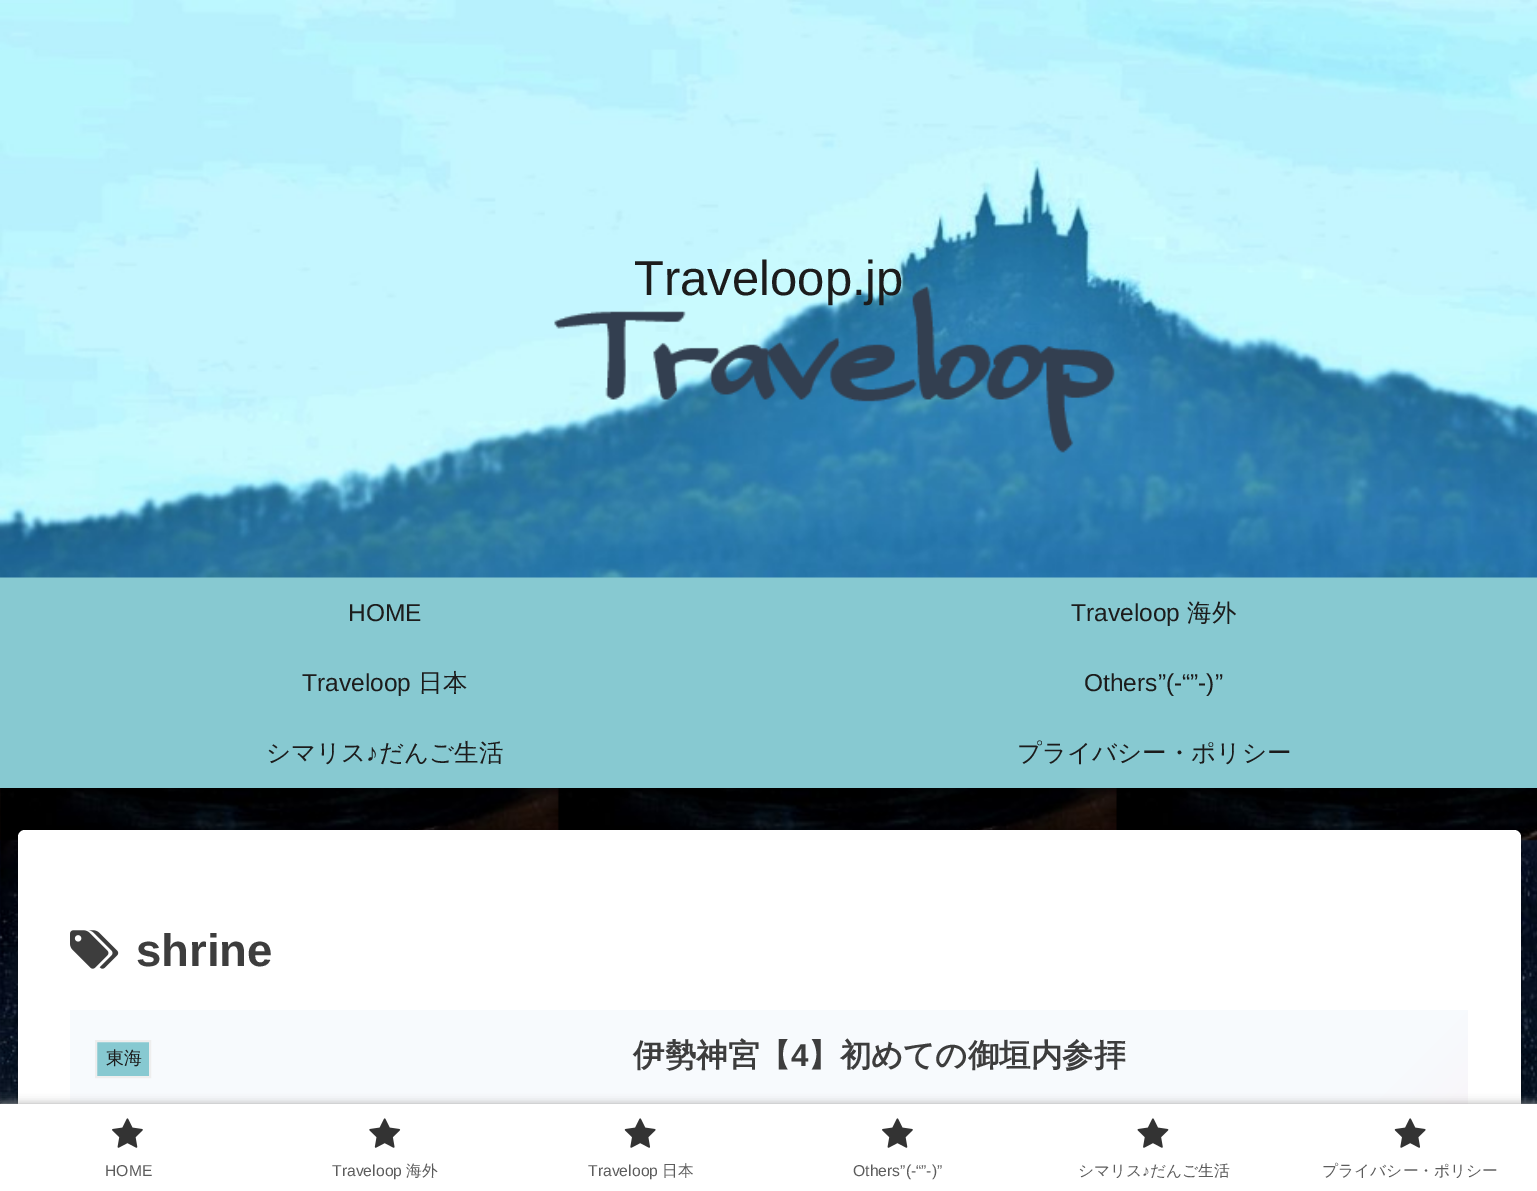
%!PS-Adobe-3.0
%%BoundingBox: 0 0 1537 1191
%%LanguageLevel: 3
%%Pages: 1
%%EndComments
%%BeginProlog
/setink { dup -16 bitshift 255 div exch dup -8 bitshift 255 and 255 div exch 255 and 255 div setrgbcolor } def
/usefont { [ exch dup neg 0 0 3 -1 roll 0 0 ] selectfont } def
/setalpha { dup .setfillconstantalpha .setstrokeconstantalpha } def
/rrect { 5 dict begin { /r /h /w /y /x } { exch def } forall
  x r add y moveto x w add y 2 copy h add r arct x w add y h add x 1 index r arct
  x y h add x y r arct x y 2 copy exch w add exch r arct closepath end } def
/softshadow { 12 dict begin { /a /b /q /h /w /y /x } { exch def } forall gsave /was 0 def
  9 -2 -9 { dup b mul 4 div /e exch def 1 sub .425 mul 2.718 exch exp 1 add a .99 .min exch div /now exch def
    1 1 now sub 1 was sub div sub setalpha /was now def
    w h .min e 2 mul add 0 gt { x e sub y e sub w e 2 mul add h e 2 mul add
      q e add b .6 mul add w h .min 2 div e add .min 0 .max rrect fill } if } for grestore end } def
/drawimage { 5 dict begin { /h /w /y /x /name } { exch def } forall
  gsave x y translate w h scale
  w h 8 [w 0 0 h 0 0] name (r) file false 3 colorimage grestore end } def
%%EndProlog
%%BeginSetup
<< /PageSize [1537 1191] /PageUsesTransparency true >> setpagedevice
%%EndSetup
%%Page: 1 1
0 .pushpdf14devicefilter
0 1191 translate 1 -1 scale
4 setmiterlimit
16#FFFFFF setink
0 0 1537 1191 rectfill
(img1.raw) 0 788 1537 316 drawimage
16#000000 setink
5 16 1528 777 0 9 0.18 softshadow
5 16 1528 777 0 4.5 0.24 softshadow
16#87C9D1 setink
0 577 1537 211 rectfill
(img2.raw) 0 0 1537 578 drawimage
/LiberationSans-Regular 49 usefont
16#1C1C1C setink
634 295 moveto (Traveloop.jp) show
/LiberationSans-Regular 24.5 usefont
348 621 moveto (HOME) show
1071 621 moveto (Traveloop) show
/WenQuanYiZenHei-Medium 24.5 usefont
1187 621 moveto (海外) show
/LiberationSans-Regular 24.5 usefont
302 691 moveto (Traveloop) show
/WenQuanYiZenHei-Medium 24.5 usefont
418 691 moveto (日本) show
/LiberationSans-Regular 24.5 usefont
1084 691 moveto (Others”\(-“”-\)”) show
/WenQuanYiZenHei-Medium 24.5 usefont
266 761 moveto (シマリス) show
/LiberationSans-Regular 24.5 usefont
366 761 moveto (♪) show
/WenQuanYiZenHei-Medium 24.5 usefont
379 761 moveto (だんご生活) show
1017 761 moveto (プライバシー・ポリシー) show
0.08 setalpha
16#000000 setink
2 setlinewidth
17 829 1505 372 8 rrect stroke
1 setalpha
18 833 1503 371 7 2 0.16 softshadow
16#FFFFFF setink
18 830 1503 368 7 rrect fill
(img3.raw) 70 930 49 39 drawimage
/LiberationSans-Bold 45.5 usefont
16#3D3D3D setink
136 966 moveto (shrine) show
gsave 70 1010 moveto 1468 1010 lineto 1468 1104 lineto 70 1104 lineto closepath clip newpath
<< /ShadingType 2 /ColorSpace /DeviceRGB /Coords [332 748 1206 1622] /Extend [true true] /Function << /FunctionType 3 /Domain [0 1] /Functions [<< /FunctionType 2 /Domain [0 1] /C0 [0.969 0.98 0.992] /C1 [0.969 0.98 0.992] /N 1 >> << /FunctionType 2 /Domain [0 1] /C0 [0.969 0.98 0.992] /C1 [0.992 0.922 0.949] /N 1 >>] /Bounds [0.8] /Encode [0 1 0 1] >> >> shfill grestore
16#87C9D1 setink
96 1041 moveto 150 1041 lineto 150 1077 lineto 96 1077 lineto closepath gsave fill grestore
16#EEEEEE setink
stroke
/WenQuanYiZenHei-Medium 18 usefont
16#1C1C1C setink
106 1064 moveto (東海) show
/WenQuanYiZenHei-Bold 31.5 usefont
16#3D3D3D setink
633 1066 moveto (伊勢神宮【) show
/LiberationSans-Bold 31.5 usefont
791 1066 moveto (4) show
/WenQuanYiZenHei-Bold 31.5 usefont
808 1066 moveto (】初めての御垣内参拝) show
16#A9A9A9 setink
0 1104 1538 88 0 4.5 1 softshadow
16#FFFFFF setink
0 1104 1537 87 rectfill
(img4.raw) 112 1118 31 30 drawimage
/LiberationSans-Regular 15.75 usefont
16#5C5C5C setink
105 1176 moveto (HOME) show
(img5.raw) 369 1118 32 30 drawimage
332 1176 moveto (Traveloop) show
/WenQuanYiZenHei-Medium 15.75 usefont
406 1176 moveto (海外) show
(img6.raw) 624 1118 32 30 drawimage
/LiberationSans-Regular 15.75 usefont
588 1176 moveto (Traveloop) show
/WenQuanYiZenHei-Medium 15.75 usefont
662 1176 moveto (日本) show
(img4.raw) 882 1118 31 30 drawimage
/LiberationSans-Regular 15.75 usefont
853 1176 moveto (Others”\(-“”-\)”) show
(img7.raw) 1137 1118 32 30 drawimage
/WenQuanYiZenHei-Medium 15.75 usefont
1078 1176 moveto (シマリス) show
/LiberationSans-Regular 15.75 usefont
1142 1176 moveto (♪) show
/WenQuanYiZenHei-Medium 15.75 usefont
1150 1176 moveto (だんご生活) show
(img6.raw) 1394 1118 32 30 drawimage
1322 1176 moveto (プライバシー・ポリシー) show
.poppdf14devicefilter showpage
%%EOF
